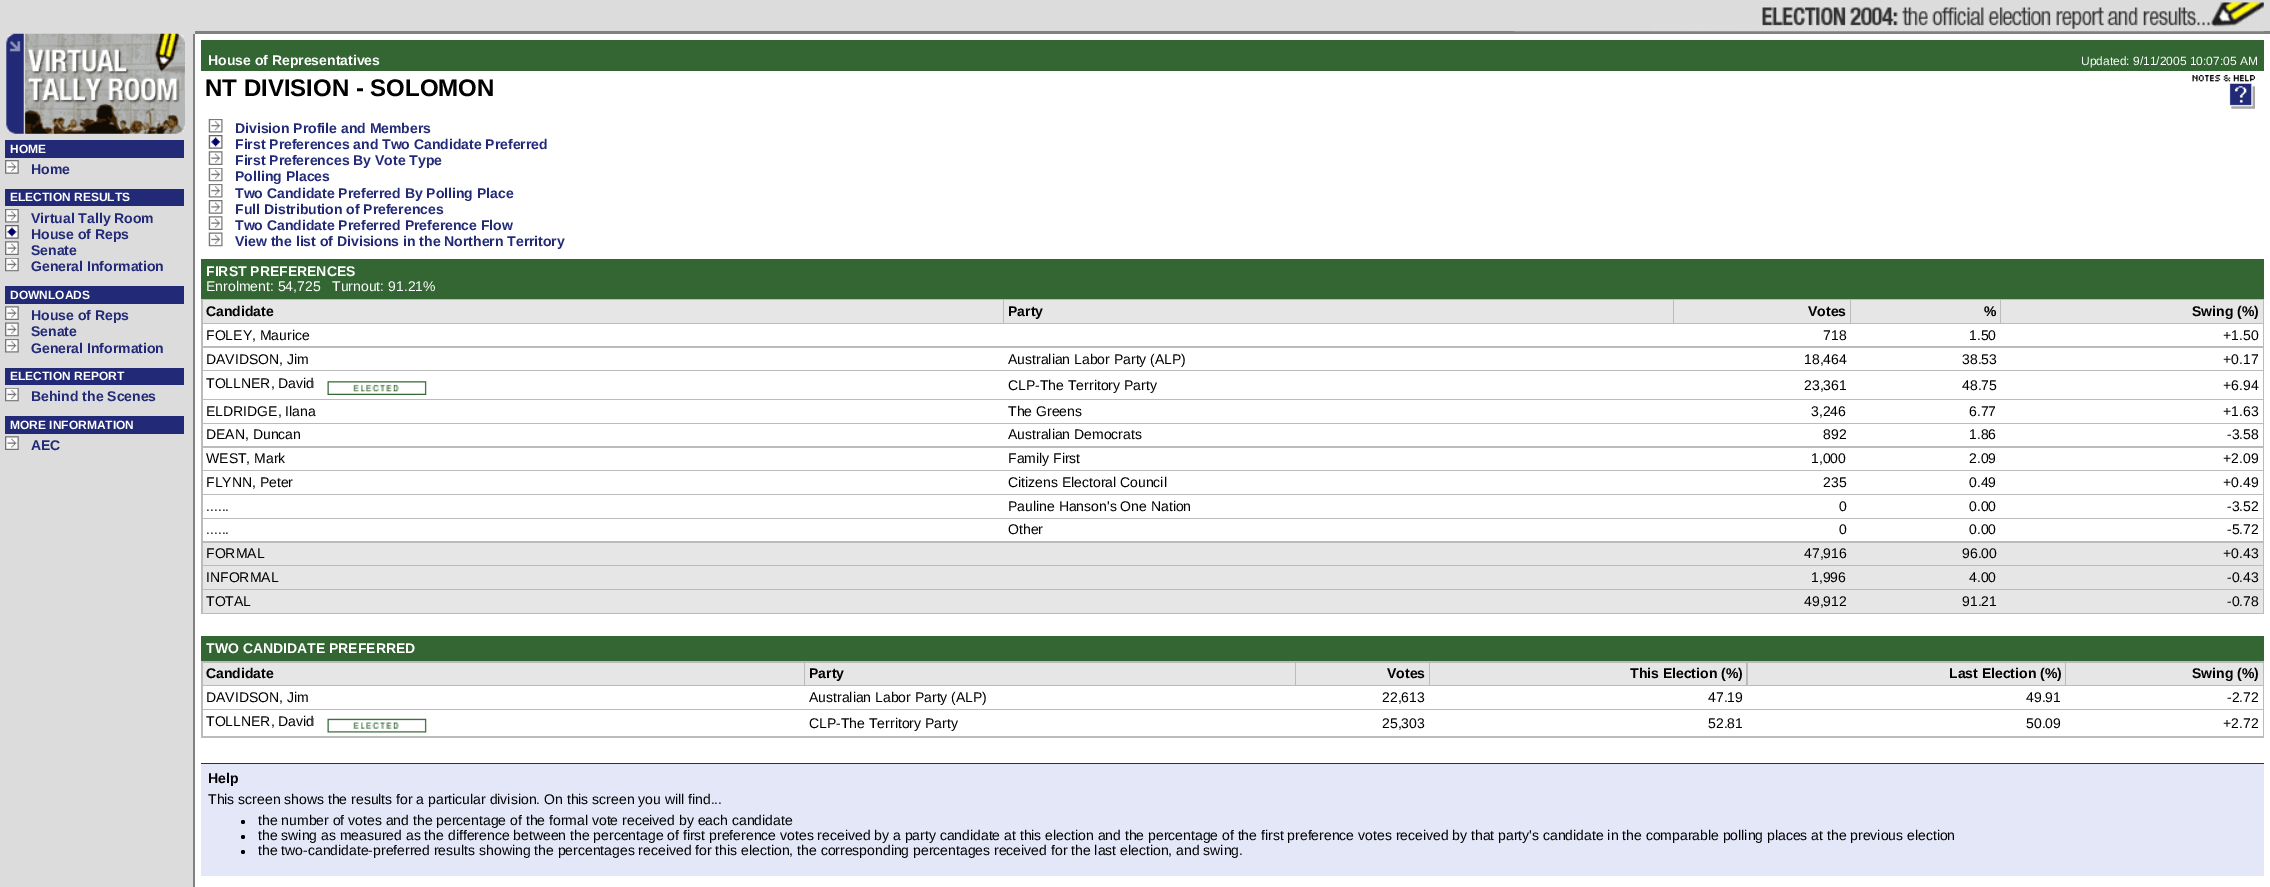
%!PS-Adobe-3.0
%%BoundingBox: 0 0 2270 887
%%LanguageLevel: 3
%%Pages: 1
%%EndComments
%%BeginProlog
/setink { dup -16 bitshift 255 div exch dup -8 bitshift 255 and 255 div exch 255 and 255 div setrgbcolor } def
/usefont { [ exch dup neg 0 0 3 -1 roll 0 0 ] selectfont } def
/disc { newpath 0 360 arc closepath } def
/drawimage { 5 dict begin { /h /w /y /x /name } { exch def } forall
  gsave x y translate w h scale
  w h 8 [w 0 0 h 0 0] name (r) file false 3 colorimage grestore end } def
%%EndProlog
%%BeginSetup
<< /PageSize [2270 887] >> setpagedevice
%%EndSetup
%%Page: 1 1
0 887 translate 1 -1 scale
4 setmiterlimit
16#DCDCDC setink
0 0 2270 887 rectfill
16#808080 setink
195 31 2075 3 rectfill
(img1.raw) 1513 2 751 30 drawimage
193 34 2 853 rectfill
(img2.raw) 6 33 179 101 drawimage
16#222A77 setink
5 140 179 18 rectfill
/LiberationSans-Bold 12 usefont
16#FFFFFF setink
10 153 moveto (HOME) show
(img3.raw) 5 160 14 14 drawimage
/LiberationSans-Bold 14 usefont
16#222A77 setink
31 174 moveto (Home) show
5 189 179 17 rectfill
/LiberationSans-Bold 12 usefont
16#FFFFFF setink
10 201 moveto (ELECTION RESULTS) show
(img4.raw) 5 209 14 14 drawimage
/LiberationSans-Bold 14 usefont
16#222A77 setink
31 223 moveto (Virtual Tally Room) show
(img5.raw) 5 225 14 14 drawimage
31 239 moveto (House of Reps) show
(img6.raw) 5 241 14 14 drawimage
31 255 moveto (Senate) show
(img7.raw) 5 258 14 14 drawimage
31 271 moveto (General Information) show
5 286 179 18 rectfill
/LiberationSans-Bold 12 usefont
16#FFFFFF setink
10 299 moveto (DOWNLOADS) show
(img6.raw) 5 306 14 14 drawimage
/LiberationSans-Bold 14 usefont
16#222A77 setink
31 320 moveto (House of Reps) show
(img8.raw) 5 322 14 15 drawimage
31 336 moveto (Senate) show
(img4.raw) 5 339 14 14 drawimage
31 353 moveto (General Information) show
5 368 179 17 rectfill
/LiberationSans-Bold 12 usefont
16#FFFFFF setink
10 380 moveto (ELECTION REPORT) show
(img7.raw) 5 388 14 14 drawimage
/LiberationSans-Bold 14 usefont
16#222A77 setink
31 401 moveto (Behind the Scenes) show
5 416 179 18 rectfill
/LiberationSans-Bold 12 usefont
16#FFFFFF setink
10 429 moveto (MORE INFORMATION) show
(img6.raw) 5 436 14 14 drawimage
/LiberationSans-Bold 14 usefont
16#222A77 setink
31 450 moveto (AEC) show
16#FFFFFF setink
195 34 2075 853 rectfill
16#336633 setink
201 40 2063 31 rectfill
16#FFFFFF setink
208 65 moveto (House of Representatives) show
/LiberationSans-Regular 12 usefont
2081 65 moveto (Updated: 9/11/2005 10:07:05 AM) show
/LiberationSans-Bold 24 usefont
16#000000 setink
205 96 moveto (NT DIVISION - SOLOMON) show
(img9.raw) 2192 75 63 34 drawimage
(img10.raw) 208 119 15 14 drawimage
/LiberationSans-Bold 14 usefont
16#222A77 setink
235 133 moveto (Division Profile and Members) show
(img11.raw) 208 135 15 14 drawimage
235 149 moveto (First Preferences and Two Candidate Preferred) show
(img12.raw) 208 151 15 14 drawimage
235 165 moveto (First Preferences By Vote Type) show
(img13.raw) 208 168 15 14 drawimage
235 181 moveto (Polling Places) show
(img10.raw) 208 184 15 14 drawimage
235 198 moveto (Two Candidate Preferred By Polling Place) show
(img14.raw) 208 200 15 14 drawimage
235 214 moveto (Full Distribution of Preferences) show
(img12.raw) 208 216 15 14 drawimage
235 230 moveto (Two Candidate Preferred Preference Flow) show
(img15.raw) 208 232 15 15 drawimage
235 246 moveto (View the list of Divisions in the Northern Territory) show
16#BBBBBB setink
201 299 2063 315 rectfill
16#336633 setink
201 259 2063 40 rectfill
16#FFFFFF setink
206 276 moveto (FIRST PREFERENCES) show
/LiberationSans-Regular 14 usefont
206 291 moveto (Enrolment: 54,725   Turnout: 91.21%) show
16#E6E6E6 setink
203 300 800 23 rectfill
/LiberationSans-Bold 14 usefont
16#000000 setink
206 316 moveto (Candidate) show
16#E6E6E6 setink
1004 300 669 23 rectfill
16#000000 setink
1008 316 moveto (Party) show
16#E6E6E6 setink
1674 300 176 23 rectfill
16#000000 setink
1808 316 moveto (Votes) show
16#E6E6E6 setink
1851 300 149 23 rectfill
16#000000 setink
1984 316 moveto (%) show
16#E6E6E6 setink
2001 300 262 23 rectfill
16#000000 setink
2192 316 moveto (Swing \(%\)) show
16#FFFFFF setink
203 324 2060 22 rectfill
/LiberationSans-Regular 14 usefont
16#000000 setink
[
    [(FOLEY, Maurice) 206 340]
    [(718) 1823 340]
    [(1.50) 1969 340]
    [(+1.50) 2223 340]
] { aload pop moveto show } forall
16#FFFFFF setink
203 348 2060 22 rectfill
16#000000 setink
[
    [(DAVIDSON, Jim) 206 364]
    [(Australian Labor Party \(ALP\)) 1008 364]
    [(18,464) 1804 364]
    [(38.53) 1962 364]
    [(+0.17) 2223 364]
] { aload pop moveto show } forall
16#FFFFFF setink
203 371 2060 28 rectfill
16#000000 setink
206 388 moveto (TOLLNER, David) show
(img16.raw) 313 381 114 14 drawimage
[
    [(CLP-The Territory Party) 1008 390]
    [(23,361) 1804 390]
    [(48.75) 1962 390]
    [(+6.94) 2223 390]
] { aload pop moveto show } forall
16#FFFFFF setink
203 400 2060 23 rectfill
16#000000 setink
[
    [(ELDRIDGE, Ilana) 206 416]
    [(The Greens) 1008 416]
    [(3,246) 1811 416]
    [(6.77) 1969 416]
    [(+1.63) 2223 416]
] { aload pop moveto show } forall
16#FFFFFF setink
203 424 2060 22 rectfill
16#000000 setink
[
    [(DEAN, Duncan) 206 439]
    [(Australian Democrats) 1008 439]
    [(892) 1823 439]
    [(1.86) 1969 439]
    [(-3.58) 2227 439]
] { aload pop moveto show } forall
16#FFFFFF setink
203 448 2060 22 rectfill
16#000000 setink
[
    [(WEST, Mark) 206 463]
    [(Family First) 1008 463]
    [(1,000) 1811 463]
    [(2.09) 1969 463]
    [(+2.09) 2223 463]
] { aload pop moveto show } forall
16#FFFFFF setink
203 471 2060 23 rectfill
16#000000 setink
[
    [(FLYNN, Peter) 206 487]
    [(Citizens Electoral Council) 1008 487]
    [(235) 1823 487]
    [(0.49) 1969 487]
    [(+0.49) 2223 487]
] { aload pop moveto show } forall
16#FFFFFF setink
203 495 2060 23 rectfill
16#000000 setink
[
    [(......) 206 511]
    [(Pauline Hanson's One Nation) 1008 511]
    [(0) 1839 511]
    [(0.00) 1969 511]
    [(-3.52) 2227 511]
] { aload pop moveto show } forall
16#FFFFFF setink
203 519 2060 22 rectfill
16#000000 setink
[
    [(......) 206 534]
    [(Other) 1008 534]
    [(0) 1839 534]
    [(0.00) 1969 534]
    [(-5.72) 2227 534]
] { aload pop moveto show } forall
16#E6E6E6 setink
203 543 2060 22 rectfill
16#000000 setink
[
    [(FORMAL) 206 558]
    [(47,916) 1804 558]
    [(96.00) 1962 558]
    [(+0.43) 2223 558]
] { aload pop moveto show } forall
16#E6E6E6 setink
203 566 2060 23 rectfill
16#000000 setink
[
    [(INFORMAL) 206 582]
    [(1,996) 1811 582]
    [(4.00) 1969 582]
    [(-0.43) 2227 582]
] { aload pop moveto show } forall
16#E6E6E6 setink
203 590 2060 23 rectfill
16#000000 setink
[
    [(TOTAL) 206 606]
    [(49,912) 1804 606]
    [(91.21) 1962 606]
    [(-0.78) 2227 606]
] { aload pop moveto show } forall
16#BBBBBB setink
201 661 2063 77 rectfill
16#336633 setink
201 636 2063 25 rectfill
/LiberationSans-Bold 14 usefont
16#FFFFFF setink
206 653 moveto (TWO CANDIDATE PREFERRED) show
16#E6E6E6 setink
203 663 601 22 rectfill
16#000000 setink
206 678 moveto (Candidate) show
16#E6E6E6 setink
805 663 490 22 rectfill
16#000000 setink
809 678 moveto (Party) show
16#E6E6E6 setink
1296 663 133 22 rectfill
16#000000 setink
1387 678 moveto (Votes) show
16#E6E6E6 setink
1430 663 316 22 rectfill
16#000000 setink
1630 678 moveto (This Election \(%\)) show
16#E6E6E6 setink
1748 663 317 22 rectfill
16#000000 setink
1949 678 moveto (Last Election \(%\)) show
16#E6E6E6 setink
2066 663 197 22 rectfill
16#000000 setink
2192 678 moveto (Swing \(%\)) show
16#FFFFFF setink
203 686 2060 23 rectfill
/LiberationSans-Regular 14 usefont
16#000000 setink
[
    [(DAVIDSON, Jim) 206 702]
    [(Australian Labor Party \(ALP\)) 809 702]
    [(22,613) 1382 702]
    [(47.19) 1708 702]
    [(49.91) 2026 702]
    [(-2.72) 2227 702]
] { aload pop moveto show } forall
16#FFFFFF setink
203 710 2060 26 rectfill
16#000000 setink
206 726 moveto (TOLLNER, David) show
(img17.raw) 313 718 114 15 drawimage
[
    [(CLP-The Territory Party) 809 728]
    [(25,303) 1382 728]
    [(52.81) 1708 728]
    [(50.09) 2026 728]
    [(+2.72) 2223 728]
] { aload pop moveto show } forall
16#E4E7F8 setink
201 764 2063 112 rectfill
16#212A77 setink
201 763 2063 1 rectfill
/LiberationSans-Bold 14 usefont
16#000000 setink
208 783 moveto (Help) show
/LiberationSans-Regular 14 usefont
208 804 moveto (This screen shows the results for a particular division. On this screen you will find...) show
243 822 2 disc fill
258 825 moveto (the number of votes and the percentage of the formal vote received by each candidate) show
243 837 2 disc fill
258 840 moveto (the swing as measured as the difference between the percentage of first preference votes received by a party candidate at this election and the percentage of the first preference votes received by that party's candidate in the comparable polling places at the previous election) show
243 852 2 disc fill
258 855 moveto (the two-candidate-preferred results showing the percentages received for this election, the corresponding percentages received for the last election, and swing.) show
showpage
%%EOF
